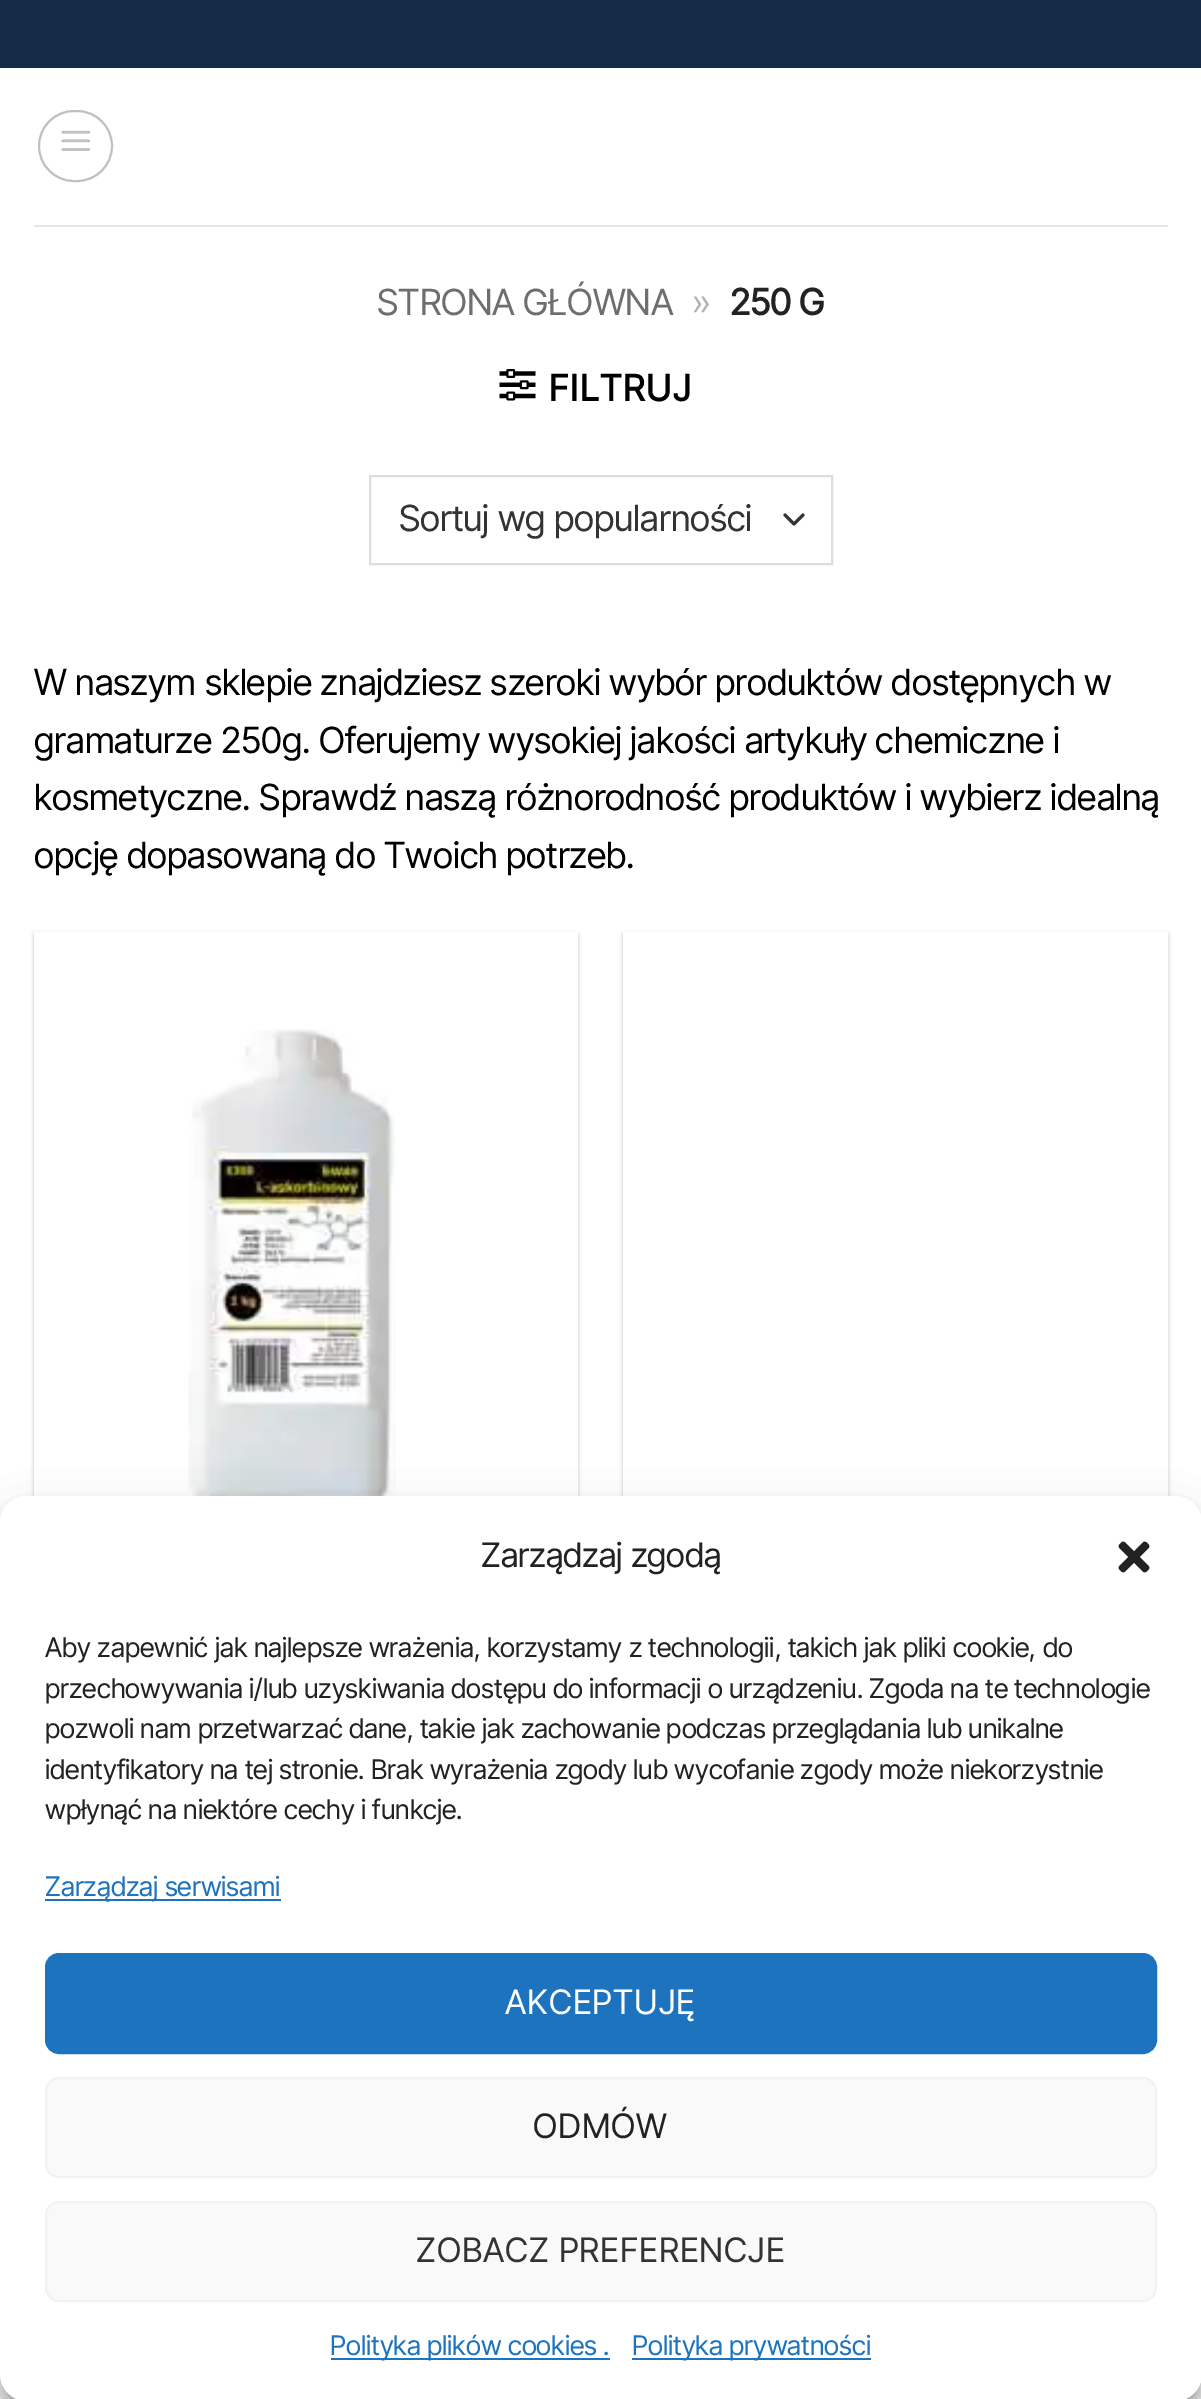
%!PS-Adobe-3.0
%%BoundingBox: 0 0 1201 2399
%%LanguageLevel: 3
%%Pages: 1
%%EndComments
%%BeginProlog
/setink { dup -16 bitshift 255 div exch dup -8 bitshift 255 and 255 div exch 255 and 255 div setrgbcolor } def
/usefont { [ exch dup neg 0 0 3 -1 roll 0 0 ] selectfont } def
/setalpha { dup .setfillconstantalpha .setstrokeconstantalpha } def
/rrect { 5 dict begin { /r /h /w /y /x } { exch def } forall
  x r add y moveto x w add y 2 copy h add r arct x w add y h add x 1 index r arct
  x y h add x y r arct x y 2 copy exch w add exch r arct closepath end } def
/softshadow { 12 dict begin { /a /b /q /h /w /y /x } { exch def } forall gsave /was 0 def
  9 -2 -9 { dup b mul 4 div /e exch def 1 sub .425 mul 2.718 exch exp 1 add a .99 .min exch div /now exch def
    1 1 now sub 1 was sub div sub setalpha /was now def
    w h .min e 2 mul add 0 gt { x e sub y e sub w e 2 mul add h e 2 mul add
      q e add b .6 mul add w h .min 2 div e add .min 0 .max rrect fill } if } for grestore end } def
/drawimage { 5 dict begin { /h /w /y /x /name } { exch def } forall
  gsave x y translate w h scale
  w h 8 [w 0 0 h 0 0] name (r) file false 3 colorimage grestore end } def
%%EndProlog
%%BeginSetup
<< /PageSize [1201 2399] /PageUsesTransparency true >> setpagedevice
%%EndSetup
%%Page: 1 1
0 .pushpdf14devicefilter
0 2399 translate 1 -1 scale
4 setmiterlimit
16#FFFFFF setink
0 0 1201 2399 rectfill
16#162B47 setink
0 0 1201 68 rectfill
16#C0C0C0 setink
2 setlinewidth
39 111 73 70 35 rrect stroke
(img1.raw) 61 130 30 21 drawimage
16#E6E6E6 setink
34 225 1134 2 rectfill
/InterTight-Regular 36 usefont
16#6E6E6E setink
377 315 moveto (STRONA GŁÓWNA) show
16#B2B2B2 setink
692 315 moveto (») show
/InterTight-Bold 36 usefont
16#222222 setink
730 315 moveto (250 G) show
(img2.raw) 499 369 37 32 drawimage
16#000000 setink
549 401 moveto 1.75 0 (FILTRUJ) ashow
16#333333 setink
3 setlinewidth
1 setlinecap
1 setlinejoin
785 515 moveto 794 524 lineto 803 515 lineto stroke
16#DDDDDD setink
2 setlinewidth
0 setlinecap
0 setlinejoin
370 476 462 88 rectstroke
/InterTight-Regular 36 usefont
16#333333 setink
399 531 moveto (Sortuj wg popularności) show
16#000000 setink
[
    [(W naszym sklepie znajdziesz szeroki wybór produktów dostępnych w) 34 695]
    [(gramaturze 250g. Oferujemy wysokiej jakości artykuły chemiczne i) 34 753]
    [(kosmetyczne. Sprawdź naszą różnorodność produktów i wybierz idealną) 34 810]
    [(opcję dopasowaną do Twoich potrzeb.) 34 868]
] { aload pop moveto show } forall
gsave
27 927 moveto 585 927 lineto 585 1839 lineto 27 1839 lineto closepath 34 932 moveto 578 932 lineto 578 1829 lineto 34 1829 lineto closepath eoclip newpath
34 934 544 898 0 2 0.24 softshadow
grestore
(img3.raw) 188 1029 208 467 drawimage
623 934 545 898 0 2 0.24 softshadow
16#FFFFFF setink
623 932 545 564 rectfill
16#000000 setink
0 1510 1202 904 27 7 0.23 softshadow
0 1519 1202 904 27 22.5 0.19 softshadow
16#FFFFFF setink
0 1496 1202 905 27 rrect fill
/InterTight-Regular 33.75 usefont
16#222222 setink
481 1567 moveto (Zarządzaj zgodą) show
(img4.raw) 1118 1541 32 32 drawimage
/InterTight-Regular 27 usefont
[
    [(Aby zapewnić jak najlepsze wrażenia, korzystamy z technologii, takich jak pliki cookie, do) 45 1657]
    [(przechowywania i/lub uzyskiwania dostępu do informacji o urządzeniu. Zgoda na te technologie) 45 1698]
    [(pozwoli nam przetwarzać dane, takie jak zachowanie podczas przeglądania lub unikalne) 45 1738]
    [(identyfikatory na tej stronie. Brak wyrażenia zgody lub wycofanie zgody może niekorzystnie) 45 1779]
    [(wpłynąć na niektóre cechy i funkcje.) 45 1819]
] { aload pop moveto show } forall
16#1E73BE setink
45 1899 236 2 rectfill
45 1896 moveto (Zarządzaj serwisami) show
46 1954 1110 99 13 rrect gsave fill grestore
stroke
/InterTight-Regular 33.75 usefont
16#FFFFFF setink
505 2014 moveto 1 0 (AKCEPTUJĘ) ashow
16#F9F9F9 setink
46 2078 1110 99 13 rrect gsave fill grestore
16#F2F2F2 setink
stroke
16#222222 setink
533 2138 moveto 1 0 (ODMÓW) ashow
16#F9F9F9 setink
46 2202 1110 99 13 rrect gsave fill grestore
16#F2F2F2 setink
stroke
16#333333 setink
416 2262 moveto 1 0 (ZOBACZ PREFERENCJE) ashow
16#1E73BE setink
331 2358 279 2 rectfill
/InterTight-Regular 27 usefont
330 2355 moveto (Polityka plików cookies .) show
632 2358 239 2 rectfill
632 2355 moveto (Polityka prywatności) show
.poppdf14devicefilter showpage
%%EOF
